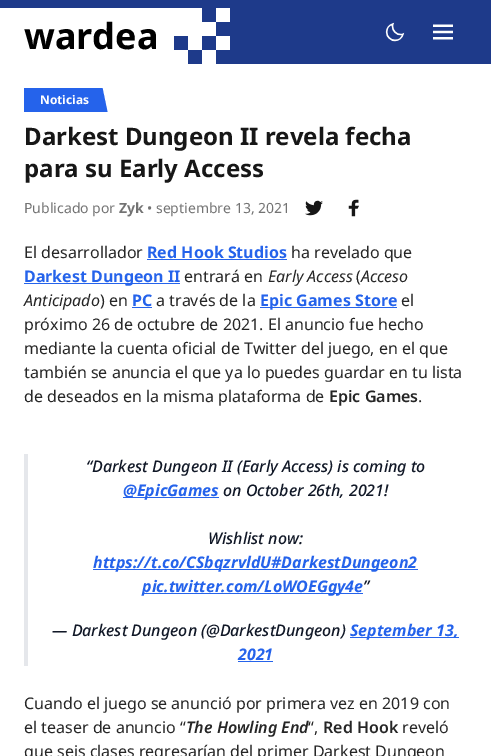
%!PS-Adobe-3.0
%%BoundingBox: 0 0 491 756
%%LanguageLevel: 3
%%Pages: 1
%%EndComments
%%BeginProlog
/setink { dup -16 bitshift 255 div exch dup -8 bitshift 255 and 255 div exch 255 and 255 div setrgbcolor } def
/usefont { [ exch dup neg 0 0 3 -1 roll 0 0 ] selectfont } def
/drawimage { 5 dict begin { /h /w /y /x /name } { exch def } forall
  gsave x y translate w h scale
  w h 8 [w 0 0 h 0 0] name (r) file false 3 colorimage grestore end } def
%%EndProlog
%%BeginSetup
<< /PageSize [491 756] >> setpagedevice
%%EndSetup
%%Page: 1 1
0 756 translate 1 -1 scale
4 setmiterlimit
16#FFFFFF setink
0 0 491 756 rectfill
16#1E3A8A setink
0 0 491 64 rectfill
16#FFFFFF setink
0 8 174 56 rectfill
/NotoSans-Bold 36 usefont
16#000000 setink
24 49 moveto (wardea) show
(img1.raw) 174 8 56 56 drawimage
(img2.raw) 385 22 20 20 drawimage
(img3.raw) 433 24 20 16 drawimage
16#2563EB setink
24 88 72 24 rectfill
/NotoSans-Bold 12 usefont
16#FFFFFF setink
40 104 moveto (Noticias) show
16#2563EB setink
90.5 88 moveto 102.5 88 lineto 107.5 112 lineto 95.5 112 lineto closepath fill
/NotoSans-Bold 24 usefont
16#171717 setink
24 145 moveto (Darkest Dungeon II revela fecha) show
24 177 moveto (para su Early Access) show
/NotoSans-Regular 14 usefont
16#737373 setink
24 213 moveto (Publicado por) show
/NotoSans-Bold 14 usefont
119 213 moveto (Zyk) show
/NotoSans-Regular 14 usefont
147 213 moveto (• septiembre 13, 2021) show
(img4.raw) 305 200 18 16 drawimage
(img5.raw) 348 199 11 18 drawimage
/NotoSans-Regular 16 usefont
16#262626 setink
24 258 moveto (El desarrollador) show
/NotoSans-Bold 16 usefont
16#2563EB setink
147 258 moveto (Red Hook Studios) show
147 259 140 1 rectfill
/NotoSans-Regular 16 usefont
16#262626 setink
291 258 moveto (ha revelado que) show
16#2563EB setink
24 283 156 1 rectfill
/NotoSans-Bold 16 usefont
24 282 moveto (Darkest Dungeon II) show
/NotoSans-Regular 16 usefont
16#262626 setink
184 282 moveto (entrará en) show
/NotoSans-Italic 16 usefont
268 282 moveto (Early Access) show
/NotoSans-Regular 16 usefont
356 282 moveto (\() show
/NotoSans-Italic 16 usefont
361 282 moveto (Acceso) show
24 306 moveto (Anticipado) show
/NotoSans-Regular 16 usefont
100 306 moveto (\) en) show
/NotoSans-Bold 16 usefont
16#2563EB setink
132 306 moveto (PC) show
132 307 20 1 rectfill
/NotoSans-Regular 16 usefont
16#262626 setink
156 306 moveto (a través de la) show
16#2563EB setink
260 307 137 1 rectfill
/NotoSans-Bold 16 usefont
260 306 moveto (Epic Games Store) show
/NotoSans-Regular 16 usefont
16#262626 setink
[
    [(el) 401 306]
    [(próximo 26 de octubre de 2021. El anuncio fue hecho) 24 330]
    [(mediante la cuenta oficial de Twitter del juego, en el que) 24 354]
    [(también se anuncia el que ya lo puedes guardar en tu lista) 24 378]
    [(de deseados en la misma plataforma de) 24 402]
] { aload pop moveto show } forall
/NotoSans-SemiBold 16 usefont
329 402 moveto (Epic Games) show
/NotoSans-Regular 16 usefont
418 402 moveto (.) show
16#E5E7EB setink
24 454 4 212 rectfill
/NotoSans-MediumItalic 16 usefont
16#111827 setink
86 472 moveto (“Darkest Dungeon II \(Early Access\) is coming to) show
16#2563EB setink
123 497 96 1 rectfill
/NotoSans-BoldItalic 16 usefont
123 496 moveto (@EpicGames) show
/NotoSans-MediumItalic 16 usefont
16#111827 setink
223 496 moveto (on October 26th, 2021!) show
208 544 moveto (Wishlist now:) show
16#2563EB setink
93 569 325 1 rectfill
/NotoSans-BoldItalic 16 usefont
93 568 moveto (https://t.co/CSbqzrvldU#DarkestDungeon2) show
142 593 221 1 rectfill
142 592 moveto (pic.twitter.com/LoWOEGgy4e) show
/NotoSans-MediumItalic 16 usefont
16#111827 setink
363 592 moveto (”) show
52 636 moveto (— Darkest Dungeon \(@DarkestDungeon\)) show
16#2563EB setink
350 637 109 1 rectfill
/NotoSans-BoldItalic 16 usefont
350 636 moveto (September 13,) show
238 660 moveto (2021) show
238 661 35 1 rectfill
/NotoSans-Regular 16 usefont
16#262626 setink
24 709 moveto (Cuando el juego se anunció por primera vez en 2019 con) show
24 733 moveto (el teaser de anuncio “) show
/NotoSans-SemiBoldItalic 16 usefont
186 733 moveto (The Howling End) show
/NotoSans-Regular 16 usefont
308 733 moveto (“,) show
/NotoSans-SemiBold 16 usefont
323 733 moveto (Red Hook) show
/NotoSans-Regular 16 usefont
402 733 moveto (reveló) show
24 757 moveto (que seis clases regresarían del primer Darkest Dungeon) show
showpage
%%EOF
